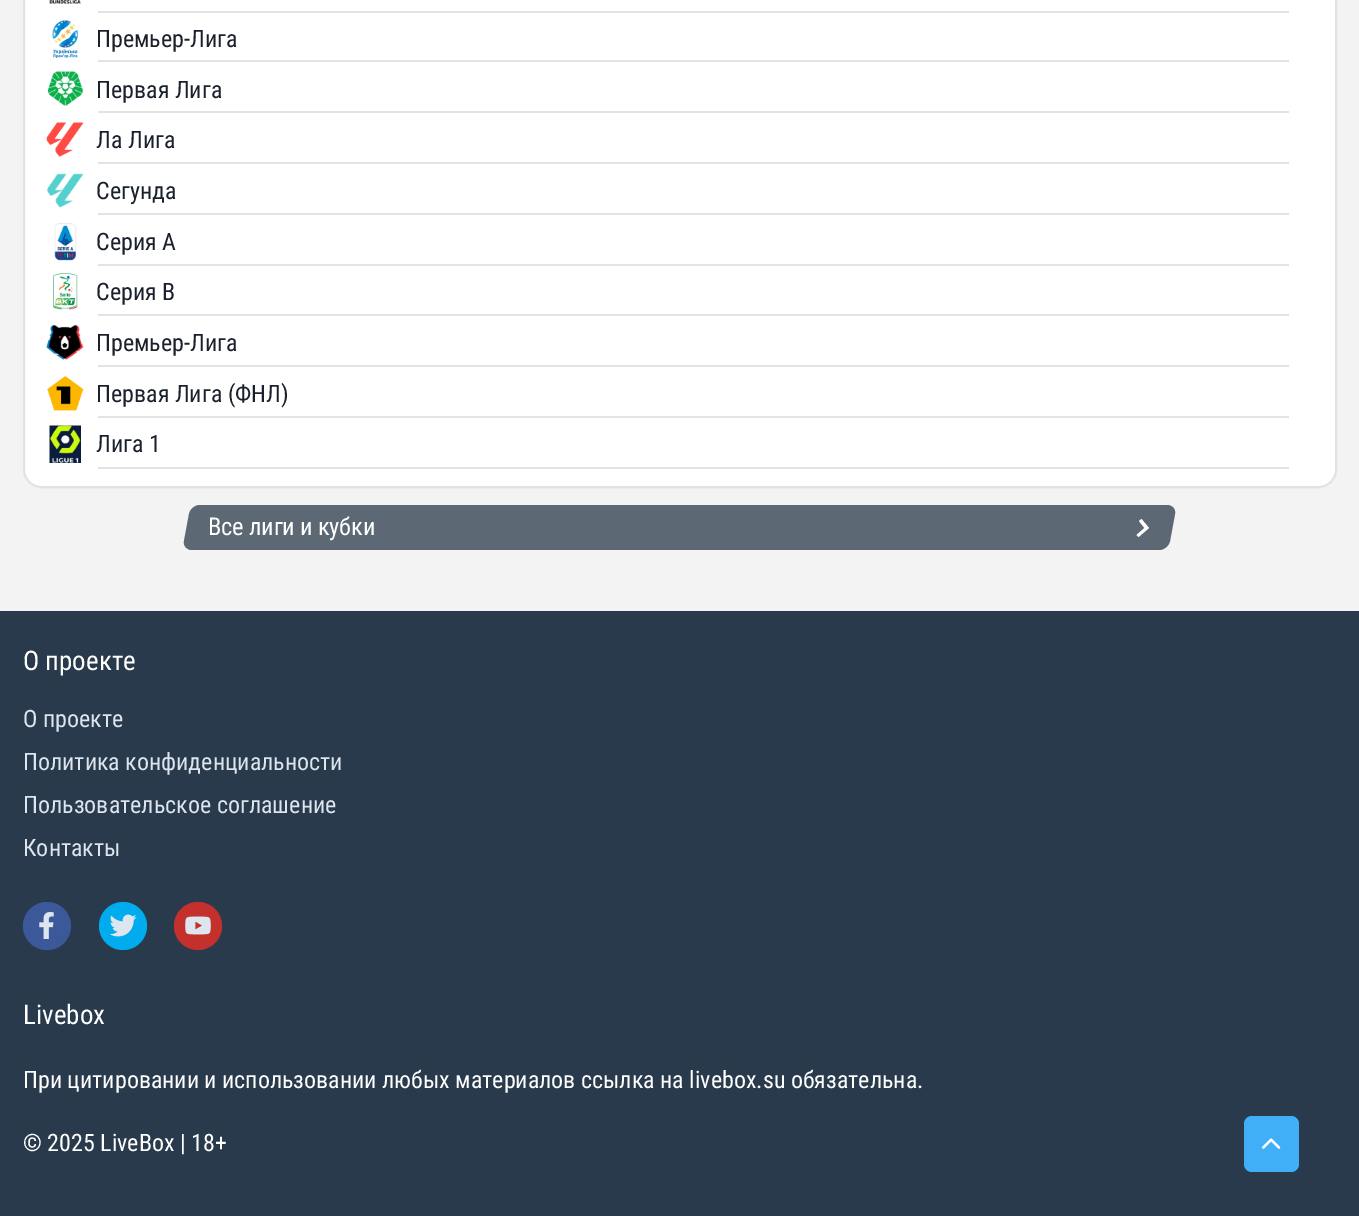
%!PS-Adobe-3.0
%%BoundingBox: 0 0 1359 1216
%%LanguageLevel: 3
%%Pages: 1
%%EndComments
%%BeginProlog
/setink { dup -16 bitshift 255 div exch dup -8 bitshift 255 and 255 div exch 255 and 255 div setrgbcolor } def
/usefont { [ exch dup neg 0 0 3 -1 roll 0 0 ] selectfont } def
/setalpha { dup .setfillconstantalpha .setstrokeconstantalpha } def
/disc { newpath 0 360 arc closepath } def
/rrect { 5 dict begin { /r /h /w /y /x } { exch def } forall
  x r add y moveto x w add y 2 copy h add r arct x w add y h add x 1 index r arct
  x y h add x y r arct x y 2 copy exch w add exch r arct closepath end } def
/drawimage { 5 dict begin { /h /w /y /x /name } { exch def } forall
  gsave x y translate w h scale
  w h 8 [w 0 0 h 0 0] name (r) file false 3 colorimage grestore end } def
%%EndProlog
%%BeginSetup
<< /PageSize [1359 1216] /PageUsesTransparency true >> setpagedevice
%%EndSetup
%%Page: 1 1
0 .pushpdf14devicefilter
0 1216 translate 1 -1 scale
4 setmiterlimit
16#F3F3F3 setink
0 0 1359 1216 rectfill
16#FFFFFF setink
23 -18 1314 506 18 rrect fill
0.12 setalpha
16#141414 setink
2 setlinewidth
24 -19 1312 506 17 rrect stroke
1 setalpha
(img1.raw) 49 0 32 4 drawimage
16#E3E3E3 setink
98 11 1191 2 rectfill
(img2.raw) 52 20 26 38 drawimage
/RobotoCondensed-Regular 24 usefont
16#1A202C setink
96 47 moveto (Премьер-Лига) show
16#E3E3E3 setink
98 60 1191 2 rectfill
(img3.raw) 47 71 37 35 drawimage
16#1A202C setink
96 98 moveto (Первая Лига) show
16#E3E3E3 setink
98 111 1191 2 rectfill
(img4.raw) 46 122 38 35 drawimage
16#1A202C setink
96 148 moveto (Ла Лига) show
16#E3E3E3 setink
98 162 1191 2 rectfill
(img5.raw) 47 173 37 35 drawimage
16#1A202C setink
96 199 moveto (Сегунда) show
16#E3E3E3 setink
98 213 1191 2 rectfill
(img6.raw) 54 223 23 38 drawimage
16#1A202C setink
96 250 moveto (Серия A) show
16#E3E3E3 setink
98 264 1191 2 rectfill
(img7.raw) 53 272 25 38 drawimage
16#1A202C setink
96 300 moveto (Серия B) show
16#E3E3E3 setink
98 314 1191 2 rectfill
(img8.raw) 46 325 38 35 drawimage
16#1A202C setink
96 351 moveto (Премьер-Лига) show
16#E3E3E3 setink
98 365 1191 2 rectfill
(img9.raw) 47 376 37 35 drawimage
16#1A202C setink
96 402 moveto (Первая Лига \(ФНЛ\)) show
16#E3E3E3 setink
98 416 1191 2 rectfill
(img10.raw) 49 425 32 38 drawimage
16#1A202C setink
96 452 moveto (Лига 1) show
16#E3E3E3 setink
98 467 1191 2 rectfill
16#5D6875 setink
200 505 moveto 1167 505 lineto 1172 505 1176 509 1175 514 curveto 1170 541 lineto 1169 546 1164 550 1159 550 curveto 192 550 lineto 187 550 183 546 184 541 curveto 189 514 lineto 190 509 195 505 200 505 curveto closepath fill
/RobotoCondensed-Regular 24.5 usefont
16#FFFFFF setink
208 535 moveto -0.2 0 (Все лиги и кубки) ashow
1141.5 519 moveto 1139 521 lineto 1144.5 528 lineto 1136.5 535 lineto 1138.5 537 lineto 1149 528 lineto closepath fill
16#293A4C setink
0 611 1359 605 rectfill
/RobotoCondensed-Regular 27 usefont
16#FFFFFF setink
23 670 moveto (О проекте) show
/RobotoCondensed-Regular 24 usefont
16#DDE5EE setink
[
    [(О проекте) 23 727]
    [(Политика конфиденциальности) 23 770]
    [(Пользовательское соглашение) 23 813]
    [(Контакты) 23 856]
] { aload pop moveto show } forall
16#3B5998 setink
47 926 24 disc fill
(img11.raw) 39 912 15 27 drawimage
16#00ACEE setink
123 926 24 disc fill
(img12.raw) 110 914 27 23 drawimage
16#C4302B setink
198 926 24 disc fill
(img13.raw) 185 916 26 19 drawimage
/RobotoCondensed-Regular 27 usefont
16#FFFFFF setink
23 1024 moveto (Livebox) show
/RobotoCondensed-Regular 24 usefont
23 1088 moveto (При цитировании и использовании любых материалов ссылка на livebox.su обязательна.) show
23 1151 moveto (© 2025 LiveBox | 18+) show
16#41AFF8 setink
1244 1116 55 56 8 rrect fill
(img14.raw) 1262 1138 19 11 drawimage
.poppdf14devicefilter showpage
%%EOF
